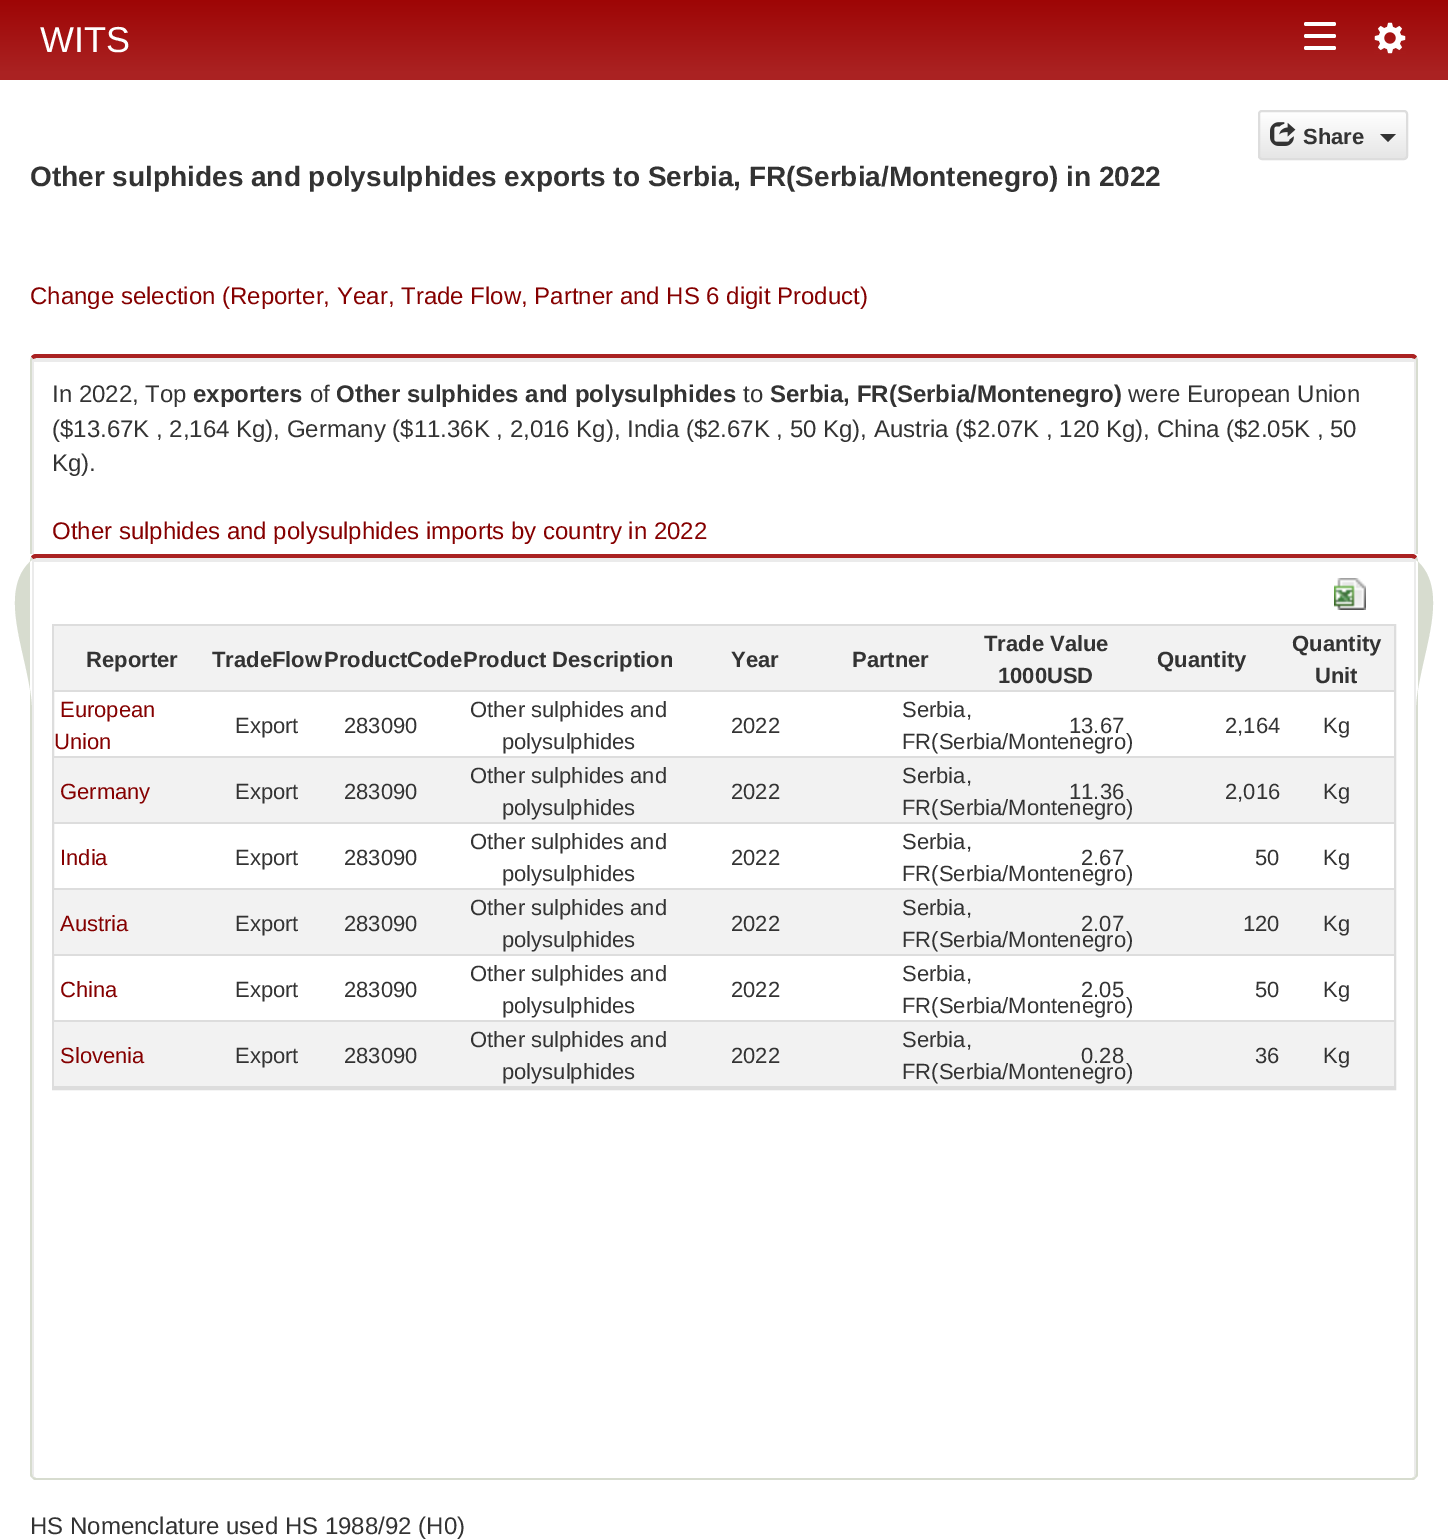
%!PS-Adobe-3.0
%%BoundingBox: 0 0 1448 1539
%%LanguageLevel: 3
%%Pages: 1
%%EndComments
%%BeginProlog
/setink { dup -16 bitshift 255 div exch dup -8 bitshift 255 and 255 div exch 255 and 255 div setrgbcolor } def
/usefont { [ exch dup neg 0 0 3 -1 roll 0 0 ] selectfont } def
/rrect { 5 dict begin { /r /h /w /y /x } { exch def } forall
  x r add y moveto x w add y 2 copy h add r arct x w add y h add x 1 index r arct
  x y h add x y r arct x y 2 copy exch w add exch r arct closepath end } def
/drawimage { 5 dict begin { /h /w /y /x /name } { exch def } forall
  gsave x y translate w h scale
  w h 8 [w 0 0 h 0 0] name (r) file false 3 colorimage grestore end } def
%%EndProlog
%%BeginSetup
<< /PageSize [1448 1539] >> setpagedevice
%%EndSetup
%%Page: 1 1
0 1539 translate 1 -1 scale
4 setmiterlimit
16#FFFFFF setink
0 0 1448 1539 rectfill
gsave 0 0 moveto 1448 0 lineto 1448 72 lineto 0 72 lineto closepath clip newpath
<< /ShadingType 2 /ColorSpace /DeviceRGB /Coords [724 0 724 72] /Extend [true true] /Function << /FunctionType 2 /Domain [0 1] /C0 [0.62 0.02 0.02] /C1 [0.667 0.133 0.133] /N 1 >> >> shfill grestore
16#AA2222 setink
0 72 1448 8 rectfill
/LiberationSans-Regular 36 usefont
16#FFFFFF setink
40 52 moveto (WITS) show
1304 22 32 4 2 rrect fill
1304 34 32 4 2 rrect fill
1304 46 32 4 2 rrect fill
(img1.raw) 1374 22 32 32 drawimage
gsave
1258 110 150 50 4 rrect clip newpath
gsave 1258 112 moveto 1408 112 lineto 1408 158 lineto 1258 158 lineto closepath clip newpath
<< /ShadingType 2 /ColorSpace /DeviceRGB /Coords [1333 112 1333 158] /Extend [true true] /Function << /FunctionType 2 /Domain [0 1] /C0 [1 1 1] /C1 [0.902 0.902 0.902] /N 1 >> >> shfill grestore
grestore
16#DDDDDD setink
2 setlinewidth
1259 111 148 48 3 rrect stroke
(img2.raw) 1270 122 26 24 drawimage
/LiberationSans-Bold 22 usefont
16#333333 setink
1303 144 moveto (Share) show
1380 134 moveto 1396 134 lineto 1388 142 lineto closepath fill
/LiberationSans-Bold 28 usefont
30 186 moveto (Other sulphides and polysulphides exports to Serbia, FR\(Serbia/Montenegro\) in 2022) show
/LiberationSans-Regular 24 usefont
16#850000 setink
30 304 moveto (Change selection \(Reporter, Year, Trade Flow, Partner and HS 6 digit Product\)) show
16#EBEBEB setink
36 358 moveto 34 358 32 359 32 360 curveto 32 648 lineto 32 650 34 652 36 652 curveto 35 652 34 651 34 650 curveto 34 362 lineto 1414 362 lineto 1414 650 lineto 1414 651 1413 652 1412 652 curveto 1414 652 1416 650 1416 648 curveto 1416 360 lineto 1416 359 1414 358 1412 358 curveto closepath fill
16#AA2222 setink
36 354 moveto 34 354 32 355 31 357 curveto 33 359 lineto 36 358 lineto 1412 358 lineto 1415 359 lineto 1417 357 lineto 1416 355 1414 354 1412 354 curveto closepath fill
16#D7DCCF setink
1418 648 moveto 1418 360 lineto 1417 357 lineto 1415 359 lineto 1416 360 lineto 1416 648 lineto 1416 649 1416 650 1415 651 curveto 1416 652 lineto 1417 651 1418 650 1418 648 curveto closepath fill
30 360 moveto 30 648 lineto 30 650 31 651 32 652 curveto 33 651 lineto 32 650 32 649 32 648 curveto 32 360 lineto 33 359 lineto 31 357 lineto closepath fill
16#333333 setink
52 402 moveto (In 2022, Top) show
/LiberationSans-Bold 24 usefont
193 402 moveto (exporters) show
/LiberationSans-Regular 24 usefont
310 402 moveto (of) show
/LiberationSans-Bold 24 usefont
336 402 moveto (Other sulphides and polysulphides) show
/LiberationSans-Regular 24 usefont
743 402 moveto (to) show
/LiberationSans-Bold 24 usefont
770 402 moveto (Serbia, FR\(Serbia/Montenegro\)) show
/LiberationSans-Regular 24 usefont
[
    [(were European Union) 1128 402]
    [(\($13.67K , 2,164 Kg\), Germany \($11.36K , 2,016 Kg\), India \($2.67K , 50 Kg\), Austria \($2.07K , 120 Kg\), China \($2.05K , 50) 52 437]
    [(Kg\).) 52 471]
] { aload pop moveto show } forall
16#850000 setink
52 539 moveto (Other sulphides and polysulphides imports by country in 2022) show
16#FFFFFF setink
30 554 1388 98 rectfill
16#EBEBEB setink
36 558 moveto 34 558 32 559 32 560 curveto 32 1474 lineto 32 1476 34 1478 36 1478 curveto 35 1478 34 1477 34 1476 curveto 34 562 lineto 1414 562 lineto 1414 1476 lineto 1414 1477 1413 1478 1412 1478 curveto 1414 1478 1416 1476 1416 1474 curveto 1416 560 lineto 1416 559 1414 558 1412 558 curveto closepath fill
16#AA2222 setink
36 554 moveto 34 554 32 555 31 557 curveto 33 559 lineto 36 558 lineto 1412 558 lineto 1415 559 lineto 1417 557 lineto 1416 555 1414 554 1412 554 curveto closepath fill
16#D7DCCF setink
1418 1474 moveto 1418 560 lineto 1417 557 lineto 1415 559 lineto 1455 592 1416 661 1416 712 curveto 1416 1474 lineto 1415 1477 lineto 1416 1478 lineto 1417 1477 1418 1476 1418 1474 curveto closepath fill
36 1480 moveto 1412 1480 lineto 1414 1480 1415 1479 1416 1478 curveto 1415 1477 lineto 1412 1478 lineto 36 1478 lineto 33 1477 lineto 32 1478 lineto 33 1479 34 1480 36 1480 curveto closepath fill
30 560 moveto 30 1474 lineto 30 1476 31 1477 32 1478 curveto 33 1477 lineto 32 1474 lineto 32 712 lineto 32 661 -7 592 33 559 curveto 31 557 lineto closepath fill
(img3.raw) 1334 578 32 32 drawimage
16#DDDDDD setink
53 625 1342 464 rectstroke
16#F2F2F2 setink
54 626 1340 64 rectfill
16#DDDDDD setink
54 690 1340 2 rectfill
/LiberationSans-Bold 22 usefont
16#333333 setink
[
    [(Reporter) 86 667]
    [(TradeFlow) 212 667]
    [(ProductCode) 324 667]
    [(Product Description) 463 667]
    [(Year) 731 667]
    [(Partner) 852 667]
    [(Trade Value) 984 651]
    [(1000USD) 998 683]
    [(Quantity) 1157 667]
    [(Quantity) 1292 651]
    [(Unit) 1315 683]
] { aload pop moveto show } forall
16#DDDDDD setink
54 756 1340 2 rectfill
/LiberationSans-Regular 22 usefont
16#850000 setink
60 717 moveto (European) show
54 749 moveto (Union) show
16#333333 setink
[
    [(Export) 235 733]
    [(283090) 344 733]
    [(Other sulphides and) 470 717]
    [(polysulphides) 502 749]
    [(2022) 731 733]
    [(Serbia,) 902 717]
    [(FR\(Serbia/Montenegro\)) 902 749]
    [(13.67) 1069 733]
    [(2,164) 1225 733]
    [(Kg) 1323 733]
] { aload pop moveto show } forall
16#F2F2F2 setink
54 758 1340 64 rectfill
16#DDDDDD setink
54 822 1340 2 rectfill
16#850000 setink
60 799 moveto (Germany) show
16#333333 setink
[
    [(Export) 235 799]
    [(283090) 344 799]
    [(Other sulphides and) 470 783]
    [(polysulphides) 502 815]
    [(2022) 731 799]
    [(Serbia,) 902 783]
    [(FR\(Serbia/Montenegro\)) 902 815]
    [(11.36) 1069 799]
    [(2,016) 1225 799]
    [(Kg) 1323 799]
] { aload pop moveto show } forall
16#DDDDDD setink
54 888 1340 2 rectfill
16#850000 setink
60 865 moveto (India) show
16#333333 setink
[
    [(Export) 235 865]
    [(283090) 344 865]
    [(Other sulphides and) 470 849]
    [(polysulphides) 502 881]
    [(2022) 731 865]
    [(Serbia,) 902 849]
    [(FR\(Serbia/Montenegro\)) 902 881]
    [(2.67) 1081 865]
    [(50) 1255 865]
    [(Kg) 1323 865]
] { aload pop moveto show } forall
16#F2F2F2 setink
54 890 1340 64 rectfill
16#DDDDDD setink
54 954 1340 2 rectfill
16#850000 setink
60 931 moveto (Austria) show
16#333333 setink
[
    [(Export) 235 931]
    [(283090) 344 931]
    [(Other sulphides and) 470 915]
    [(polysulphides) 502 947]
    [(2022) 731 931]
    [(Serbia,) 902 915]
    [(FR\(Serbia/Montenegro\)) 902 947]
    [(2.07) 1081 931]
    [(120) 1243 931]
    [(Kg) 1323 931]
] { aload pop moveto show } forall
16#DDDDDD setink
54 1020 1340 2 rectfill
16#850000 setink
60 997 moveto (China) show
16#333333 setink
[
    [(Export) 235 997]
    [(283090) 344 997]
    [(Other sulphides and) 470 981]
    [(polysulphides) 502 1013]
    [(2022) 731 997]
    [(Serbia,) 902 981]
    [(FR\(Serbia/Montenegro\)) 902 1013]
    [(2.05) 1081 997]
    [(50) 1255 997]
    [(Kg) 1323 997]
] { aload pop moveto show } forall
16#F2F2F2 setink
54 1022 1340 64 rectfill
16#DDDDDD setink
54 1086 1340 2 rectfill
16#850000 setink
60 1063 moveto (Slovenia) show
16#333333 setink
[
    [(Export) 235 1063]
    [(283090) 344 1063]
    [(Other sulphides and) 470 1047]
    [(polysulphides) 502 1079]
    [(2022) 731 1063]
    [(Serbia,) 902 1047]
    [(FR\(Serbia/Montenegro\)) 902 1079]
    [(0.28) 1081 1063]
    [(36) 1255 1063]
    [(Kg) 1323 1063]
] { aload pop moveto show } forall
/LiberationSans-Regular 24 usefont
30 1534 moveto (HS Nomenclature used HS 1988/92 \(H0\)) show
showpage
%%EOF
